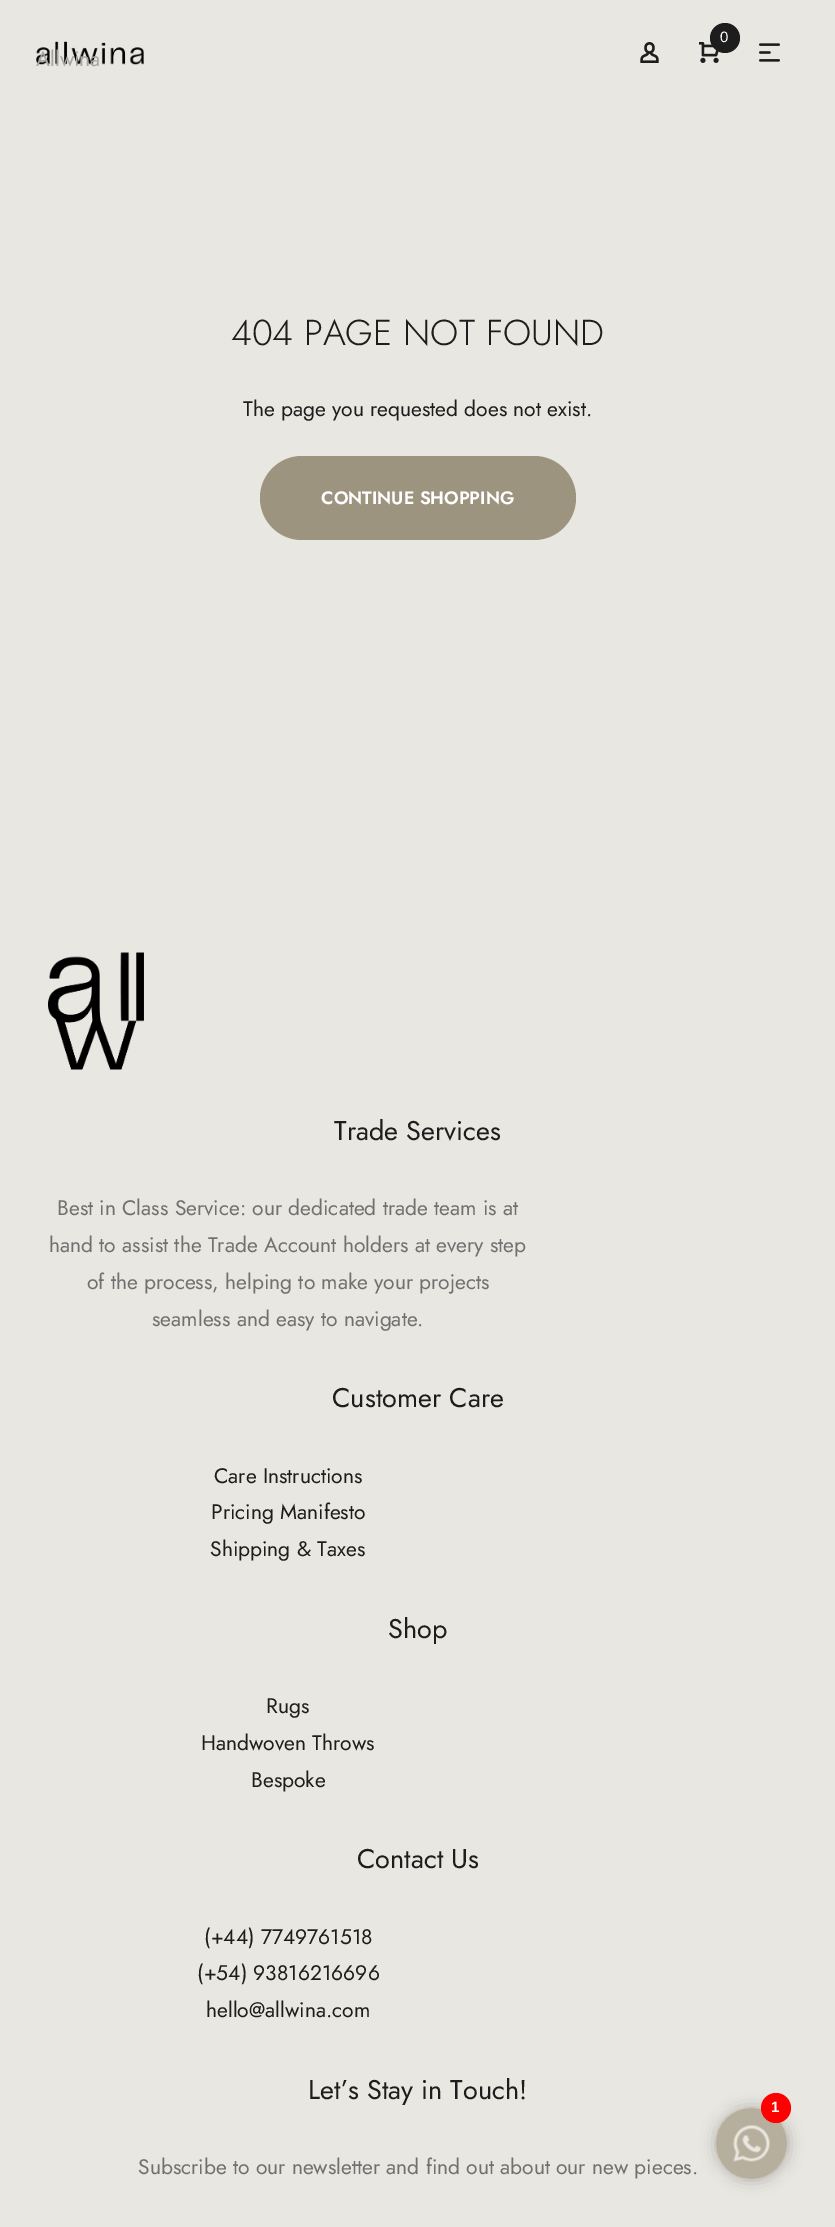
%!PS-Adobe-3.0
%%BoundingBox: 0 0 835 2227
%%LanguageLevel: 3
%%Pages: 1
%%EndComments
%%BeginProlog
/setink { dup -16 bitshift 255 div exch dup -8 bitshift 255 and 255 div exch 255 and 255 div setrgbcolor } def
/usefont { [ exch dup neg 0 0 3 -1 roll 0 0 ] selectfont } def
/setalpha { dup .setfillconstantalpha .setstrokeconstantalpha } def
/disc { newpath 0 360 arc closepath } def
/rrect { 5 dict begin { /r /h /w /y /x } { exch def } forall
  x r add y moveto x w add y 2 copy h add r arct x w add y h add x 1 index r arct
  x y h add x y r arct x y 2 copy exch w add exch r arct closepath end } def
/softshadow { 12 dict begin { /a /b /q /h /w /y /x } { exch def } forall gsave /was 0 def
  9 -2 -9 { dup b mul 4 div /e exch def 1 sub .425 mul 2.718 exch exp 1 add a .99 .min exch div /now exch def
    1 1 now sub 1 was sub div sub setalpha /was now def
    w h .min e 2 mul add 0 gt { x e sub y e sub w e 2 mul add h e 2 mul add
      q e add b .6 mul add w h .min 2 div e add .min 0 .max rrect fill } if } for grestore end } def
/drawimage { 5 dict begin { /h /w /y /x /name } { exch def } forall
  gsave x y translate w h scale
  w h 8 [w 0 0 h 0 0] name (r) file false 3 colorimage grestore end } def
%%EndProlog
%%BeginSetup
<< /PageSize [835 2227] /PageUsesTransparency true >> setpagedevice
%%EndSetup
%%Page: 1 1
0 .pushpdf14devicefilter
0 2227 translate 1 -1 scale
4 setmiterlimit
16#E9E7E1 setink
0 0 835 2227 rectfill
(img1.raw) 699 42 20 21 drawimage
16#1D1D1D setink
725 38 15 disc fill
/LiberationSans-Regular 15 usefont
16#FFFFFF setink
720 42 moveto (0) show
(img2.raw) 640 42 19 21 drawimage
(img3.raw) 759 43 21 19 drawimage
(img4.raw) 36 41 108 24 drawimage
/Jost-Regular 21 usefont
16#A7A5A1 setink
36 66 moveto (Allwina) show
/Jost-Light 36 usefont
16#1D1D1D setink
231 345 moveto (404 PAGE NOT FOUND) show
/Jost-Regular 21 usefont
243 416 moveto (The page you requested does not exist.) show
16#9C947F setink
260 456 316 84 42 rrect fill
/Jost-SemiBold 18 usefont
16#FFFFFF setink
321 504 moveto (CONTINUE SHOPPING) show
(img5.raw) 48 952 96 118 drawimage
/Jost-Regular 27 usefont
16#1D1D1D setink
334 1140 moveto (Trade Services) show
/Jost-Regular 21 usefont
16#707070 setink
[
    [(Best in Class Service: our dedicated trade team is at) 57 1215]
    [(hand to assist the Trade Account holders at every step) 49 1252]
    [(of the process, helping to make your projects) 87 1289]
    [(seamless and easy to navigate.) 152 1326]
] { aload pop moveto show } forall
/Jost-Regular 27 usefont
16#1D1D1D setink
332 1407 moveto (Customer Care) show
/Jost-Regular 21 usefont
[
    [(Care Instructions) 214 1483]
    [(Pricing Manifesto) 211 1519]
    [(Shipping & Taxes) 210 1556]
] { aload pop moveto show } forall
/Jost-Regular 27 usefont
388 1638 moveto (Shop) show
/Jost-Regular 21 usefont
[
    [(Rugs) 266 1713]
    [(Handwoven Throws) 201 1750]
    [(Bespoke) 251 1787]
] { aload pop moveto show } forall
/Jost-Regular 27 usefont
357 1868 moveto (Contact Us) show
/Jost-Regular 21 usefont
[
    [(\(+44\) 7749761518) 204 1944]
    [(\(+54\) 93816216696) 197 1980]
    [(hello@allwina.com) 206 2017]
] { aload pop moveto show } forall
/Jost-Regular 27 usefont
308 2099 moveto (Let’s Stay in Touch!) show
/Jost-Regular 21 usefont
16#707070 setink
138 2174 moveto (Subscribe to our newsletter and find out about our new pieces.) show
gsave
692 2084 moveto 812 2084 lineto 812 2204 lineto 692 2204 lineto closepath 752 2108 moveto 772 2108 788 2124 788 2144 curveto 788 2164 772 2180 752 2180 curveto 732 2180 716 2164 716 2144 curveto 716 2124 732 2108 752 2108 curveto closepath eoclip newpath
16#000000 setink
716 2108 72 72 36 7.5 0.25 softshadow
grestore
(img6.raw) 715 2107 73 73 drawimage
16#FF0000 setink
776 2108 15 disc fill
/LiberationSans-Bold 15 usefont
16#FFFFFF setink
771 2112 moveto (1) show
.poppdf14devicefilter showpage
%%EOF
